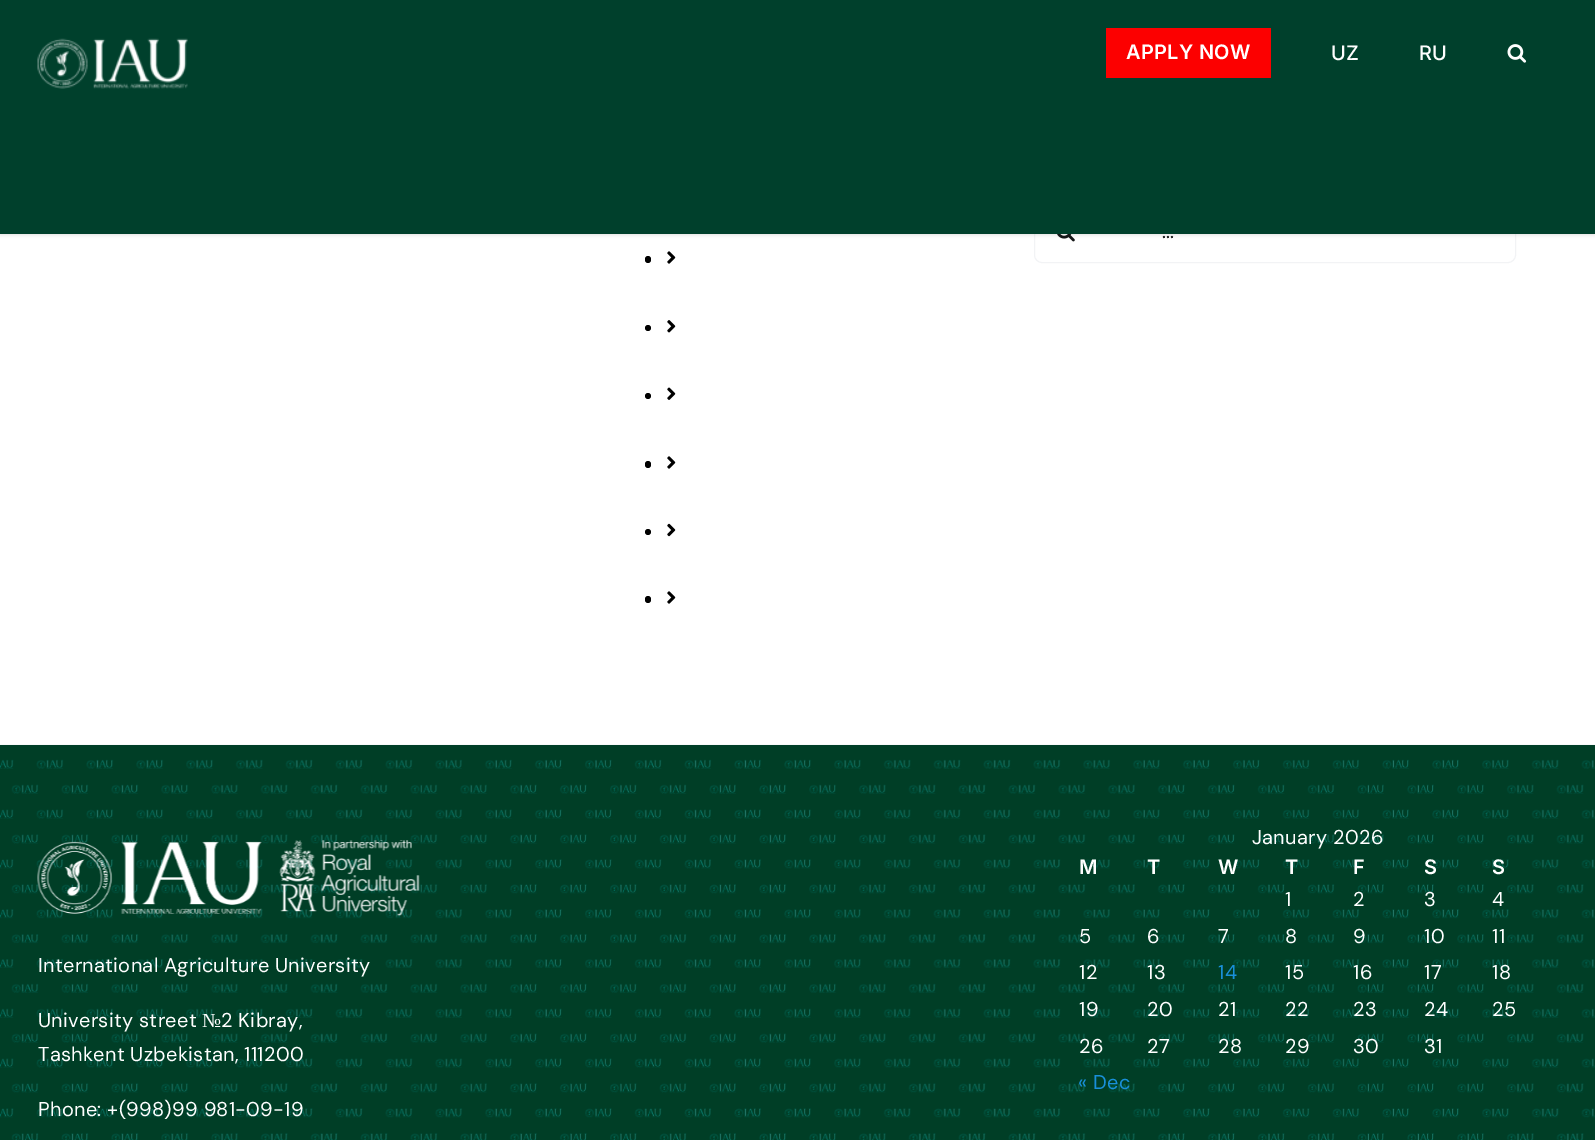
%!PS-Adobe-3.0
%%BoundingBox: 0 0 1595 1140
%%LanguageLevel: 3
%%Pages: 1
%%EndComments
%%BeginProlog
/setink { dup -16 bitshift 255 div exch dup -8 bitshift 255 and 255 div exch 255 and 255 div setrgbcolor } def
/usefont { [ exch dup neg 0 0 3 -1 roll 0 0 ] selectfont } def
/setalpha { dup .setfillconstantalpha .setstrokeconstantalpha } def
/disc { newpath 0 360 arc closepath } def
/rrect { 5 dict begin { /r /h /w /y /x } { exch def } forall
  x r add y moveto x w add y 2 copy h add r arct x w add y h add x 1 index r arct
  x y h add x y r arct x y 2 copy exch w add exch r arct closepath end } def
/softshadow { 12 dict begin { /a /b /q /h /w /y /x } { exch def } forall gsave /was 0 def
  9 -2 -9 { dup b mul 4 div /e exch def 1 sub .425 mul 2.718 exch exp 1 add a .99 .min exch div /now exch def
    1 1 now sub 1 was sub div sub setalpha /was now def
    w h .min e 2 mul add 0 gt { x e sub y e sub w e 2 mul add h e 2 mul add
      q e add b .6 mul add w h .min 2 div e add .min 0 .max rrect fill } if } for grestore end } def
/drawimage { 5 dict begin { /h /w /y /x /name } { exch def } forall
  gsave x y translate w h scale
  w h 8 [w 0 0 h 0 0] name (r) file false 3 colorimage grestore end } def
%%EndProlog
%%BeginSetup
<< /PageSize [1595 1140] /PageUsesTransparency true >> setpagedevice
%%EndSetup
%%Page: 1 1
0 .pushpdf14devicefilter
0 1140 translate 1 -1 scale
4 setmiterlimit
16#FFFFFF setink
0 0 1595 1140 rectfill
16#F2F3F5 setink
1034.5 200.5 481 62 7.5 rrect stroke
(img3.raw) 1057 234 18 8 drawimage
16#000000 setink
0 1 1595 234 0 2 0.12 softshadow
16#00402C setink
0 0 1595 234 rectfill
(img1.raw) 37 38 151 51 drawimage
16#FC0000 setink
1106 28 165 50 rectfill
/Inter-SemiBold 20 usefont
16#FFFFFF setink
1126 59 moveto 0.3 0 (APPLY NOW) ashow
/Inter-Medium 20 usefont
1331 60 moveto 0.3 0 (UZ) ashow
1419 60 moveto 0.3 0 (RU) ashow
(img2.raw) 1507 44 20 19 drawimage
/DMSans-Regular 20 usefont
16#141617 setink
1162 238 moveto (...) show
16#000000 setink
645 256 6 7 3 rrect fill
(img4.raw) 667 251 9 13 drawimage
648 328 3 disc fill
(img5.raw) 667 320 9 13 drawimage
648 396 3 disc fill
(img6.raw) 667 387 9 13 drawimage
645 461 6 7 3 rrect fill
(img4.raw) 667 456 9 13 drawimage
648 532 3 disc fill
(img7.raw) 667 523 9 14 drawimage
645 596 6 7 3 rrect fill
(img4.raw) 667 591 9 13 drawimage
16#00402C setink
0 745 1595 395 rectfill
(img8.raw) 0 744 1595 396 drawimage
(img9.raw) 37 841 225 73 drawimage
(img10.raw) 279 840 141 76 drawimage
16#FFFFFF setink
38 972 moveto 0.3 0 (International Agriculture University) ashow
38 1027 moveto 0.3 0 (University street) ashow
/LiberationSerif-Regular 20 usefont
202 1027 moveto 0.3 0 (№) ashow
/DMSans-Regular 20 usefont
221 1027 moveto 0.3 0 (2 Kibray,) ashow
38 1061 moveto 0.3 0 (Tashkent Uzbekistan, 111200) ashow
38 1116 moveto 0.3 0 (Phone: +\(998\)99 981-09-19) ashow
1252 844 moveto 0.3 0 (January 2026) ashow
/Inter-SemiBold 20 usefont
[
    [(M) 1079 874]
    [(T) 1147 874]
    [(W) 1218 874]
    [(T) 1285 874]
    [(F) 1353 874]
    [(S) 1424 874]
    [(S) 1492 874]
] { aload pop moveto show } forall
/DMSans-Regular 20 usefont
1285 906 moveto 0.3 0 (1) ashow
1353 906 moveto 0.3 0 (2) ashow
1424 906 moveto 0.3 0 (3) ashow
1492 906 moveto 0.3 0 (4) ashow
1079 943 moveto 0.3 0 (5) ashow
1147 943 moveto 0.3 0 (6) ashow
1218 943 moveto 0.3 0 (7) ashow
1285 943 moveto 0.3 0 (8) ashow
1353 943 moveto 0.3 0 (9) ashow
1424 943 moveto 0.3 0 (10) ashow
1492 943 moveto 0.3 0 (11) ashow
1079 979 moveto 0.3 0 (12) ashow
1147 979 moveto 0.3 0 (13) ashow
16#198FD9 setink
1218 979 moveto 0.3 0 (14) ashow
16#FFFFFF setink
1285 979 moveto 0.3 0 (15) ashow
1353 979 moveto 0.3 0 (16) ashow
1424 979 moveto 0.3 0 (17) ashow
1492 979 moveto 0.3 0 (18) ashow
1079 1016 moveto 0.3 0 (19) ashow
1147 1016 moveto 0.3 0 (20) ashow
1218 1016 moveto 0.3 0 (21) ashow
1285 1016 moveto 0.3 0 (22) ashow
1353 1016 moveto 0.3 0 (23) ashow
1424 1016 moveto 0.3 0 (24) ashow
1492 1016 moveto 0.3 0 (25) ashow
1079 1053 moveto 0.3 0 (26) ashow
1147 1053 moveto 0.3 0 (27) ashow
1218 1053 moveto 0.3 0 (28) ashow
1285 1053 moveto 0.3 0 (29) ashow
1353 1053 moveto 0.3 0 (30) ashow
1424 1053 moveto 0.3 0 (31) ashow
16#198FD9 setink
1078 1089 moveto 0.3 0 (« Dec) ashow
.poppdf14devicefilter showpage
%%EOF
